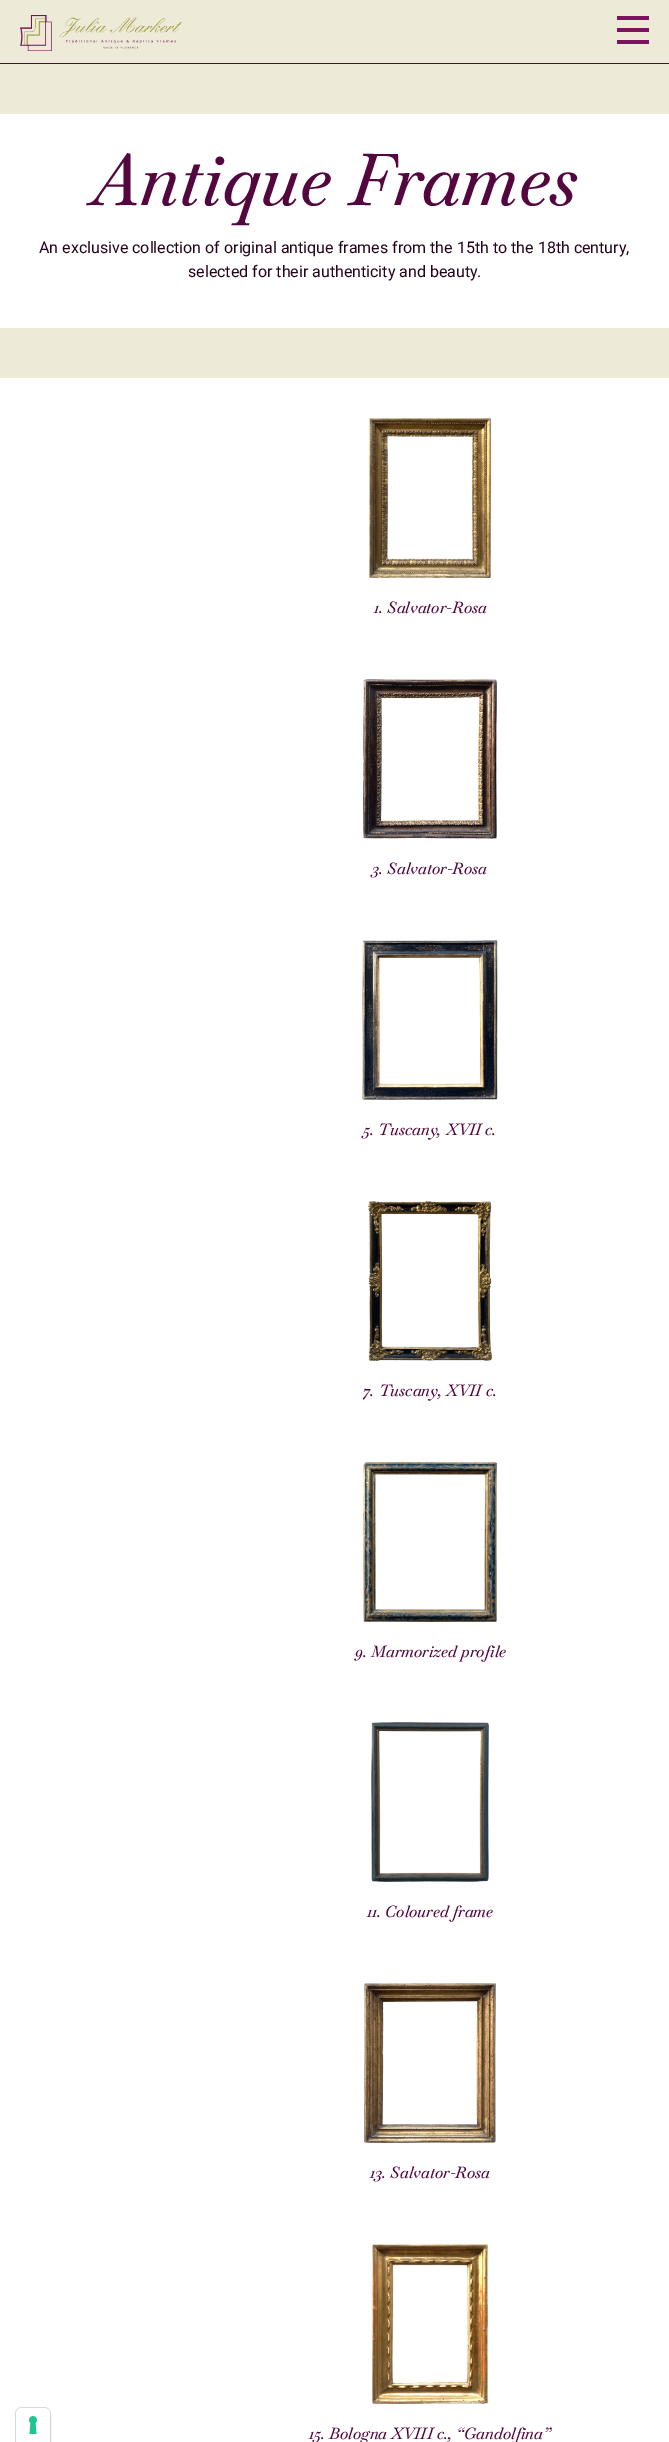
%!PS-Adobe-3.0
%%BoundingBox: 0 0 669 2442
%%LanguageLevel: 3
%%Pages: 1
%%EndComments
%%BeginProlog
/setink { dup -16 bitshift 255 div exch dup -8 bitshift 255 and 255 div exch 255 and 255 div setrgbcolor } def
/usefont { [ exch dup neg 0 0 3 -1 roll 0 0 ] selectfont } def
/drawimage { 5 dict begin { /h /w /y /x /name } { exch def } forall
  gsave x y translate w h scale
  w h 8 [w 0 0 h 0 0] name (r) file false 3 colorimage grestore end } def
%%EndProlog
%%BeginSetup
<< /PageSize [669 2442] >> setpagedevice
%%EndSetup
%%Page: 1 1
0 2442 translate 1 -1 scale
4 setmiterlimit
16#EDEBD8 setink
0 0 669 2442 rectfill
16#54073E setink
0 63 669 1 rectfill
(img1.raw) 20 15 162 36 drawimage
[
    [617 16 32 4 16#7D125E]
    [617 28 32 4 16#7D125E]
    [617 40 32 4 16#7D125E]
    [0 378 669 2064 16#FFFFFF]
] { aload pop setink rectfill } forall
16#D9D9D9 setink
22 2407.5 moveto 44 2407.5 lineto 47.5 2407.5 50.5 2410.5 50.5 2414 curveto 50.5 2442.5 lineto 15.5 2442.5 lineto 15.5 2414 lineto 15.5 2410.5 18.5 2407.5 22 2407.5 curveto closepath stroke
16#FFFFFF setink
22 2408 moveto 44 2408 lineto 47.5 2408 50 2410.5 50 2414 curveto 50 2442 lineto 16 2442 lineto 16 2414 lineto 16 2410.5 18.5 2408 22 2408 curveto closepath fill
(img2.raw) 29 2416 8 18 drawimage
0 114 669 214 rectfill
/Baskervville-MediumItalic 72 usefont
16#54073E setink
91 205 moveto (Antique Frames) show
/Roboto-Regular 16 usefont
16#26031C setink
39 253 moveto (An exclusive collection of original antique frames from the 15th to the 18th century,) show
188 277 moveto (selected for their authenticity and beauty.) show
(img3.raw) 369 418 122 160 drawimage
/Baskervville-MediumItalic 16 usefont
16#54073E setink
374 613 moveto (1. Salvator-Rosa) show
(img4.raw) 363 679 134 160 drawimage
372 874 moveto (3. Salvator-Rosa) show
(img5.raw) 362 940 136 160 drawimage
363 1135 moveto (5. Tuscany, XVII c.) show
(img6.raw) 368 1201 124 160 drawimage
363 1396 moveto (7. Tuscany, XVII c.) show
(img7.raw) 363 1462 134 160 drawimage
355 1657 moveto (9. Marmorized profile) show
(img8.raw) 371 1722 118 160 drawimage
367 1917 moveto (11. Coloured frame) show
(img9.raw) 364 1983 132 160 drawimage
370 2178 moveto (13. Salvator-Rosa) show
(img10.raw) 372 2244 116 160 drawimage
309 2439 moveto (15. Bologna XVIII c., “Gandolfina”) show
showpage
%%EOF
